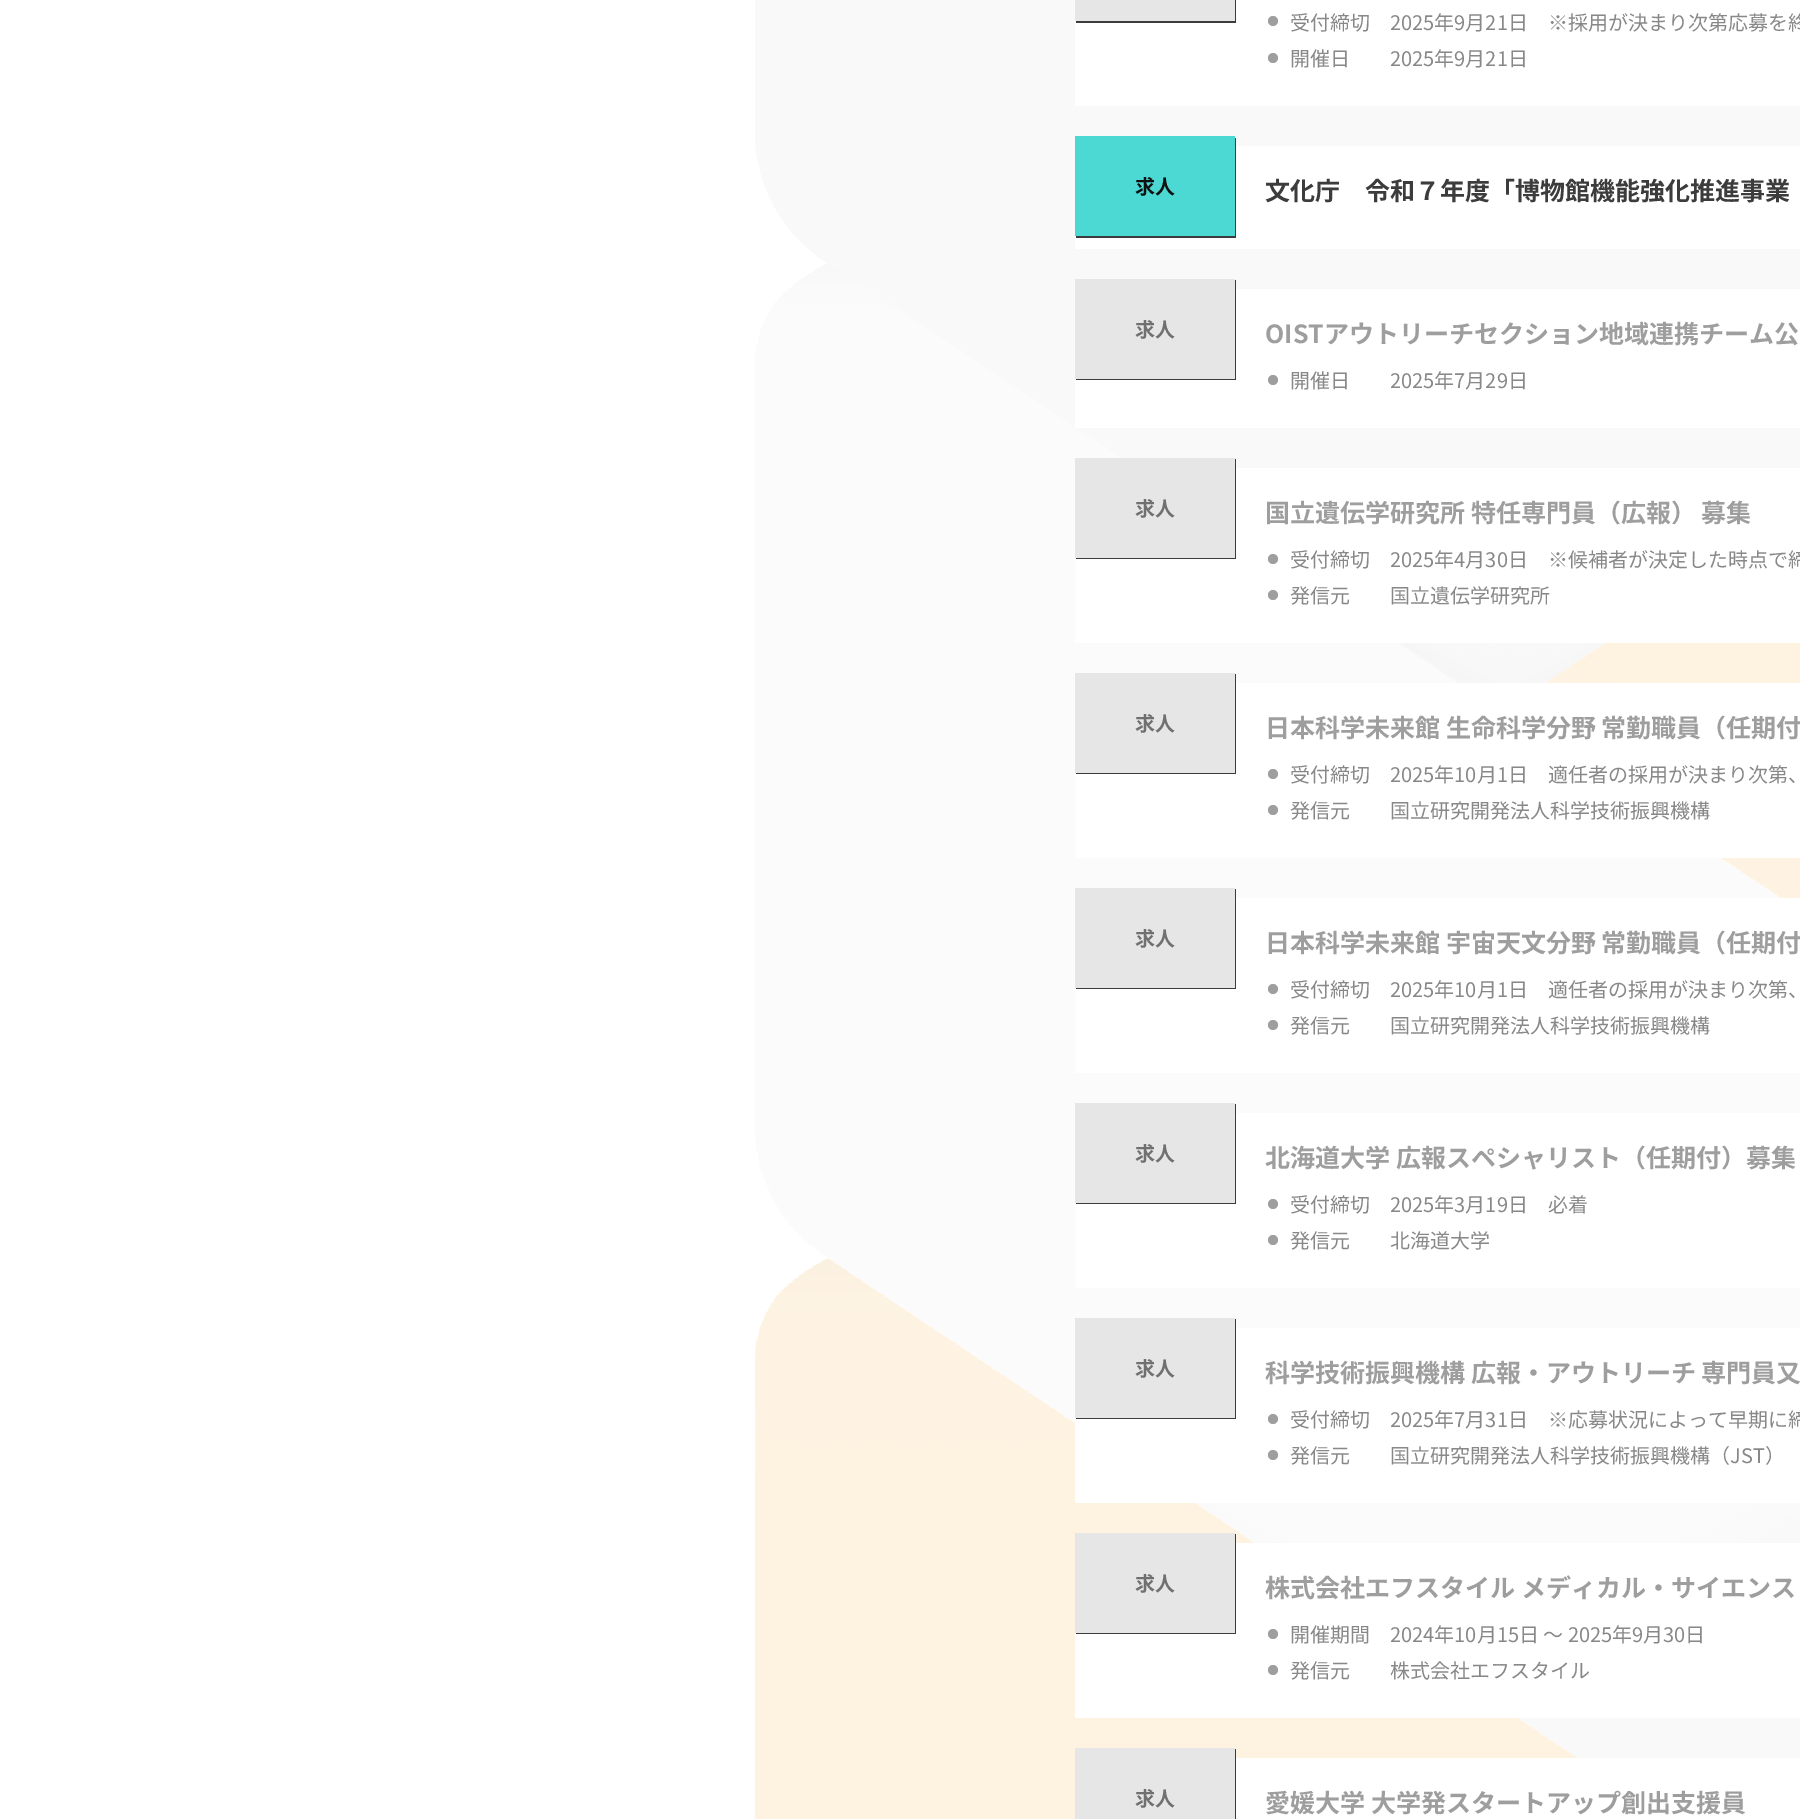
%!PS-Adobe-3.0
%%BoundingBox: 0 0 1800 1819
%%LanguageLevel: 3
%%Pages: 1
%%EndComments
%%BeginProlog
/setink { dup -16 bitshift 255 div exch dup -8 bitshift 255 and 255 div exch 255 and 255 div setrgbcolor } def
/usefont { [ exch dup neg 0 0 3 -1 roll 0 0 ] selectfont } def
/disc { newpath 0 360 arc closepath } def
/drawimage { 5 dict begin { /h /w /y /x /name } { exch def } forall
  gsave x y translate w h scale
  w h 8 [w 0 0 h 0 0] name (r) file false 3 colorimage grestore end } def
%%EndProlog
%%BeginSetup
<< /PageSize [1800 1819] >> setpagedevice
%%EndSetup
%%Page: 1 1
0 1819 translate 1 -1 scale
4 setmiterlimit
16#FFFFFF setink
0 0 1800 1819 rectfill
gsave
755 0 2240 263 rectclip
16#F9F9F9 setink
1502 -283 moveto 1484 -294 lineto 1484 -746 lineto 755 -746 lineto 755 132 lineto 755 184 781 232 824 261 curveto 828 264 lineto 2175 264 lineto 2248 215 lineto closepath fill
grestore
(img1.raw) 755 263 1045 1556 drawimage
1075 0 725 106 rectfill
16#3C3C3C setink
1076 21 moveto 1076 23 lineto 1236 23 lineto 1236 -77 lineto 1235 -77 lineto 1235 21 lineto closepath fill
16#E6E6E6 setink
1075 0 160 21 rectfill
16#9E9E9E setink
1273 21 5 disc fill
/NotoSansJP-Regular 20 usefont
16#888888 setink
[
    [(受付締切) 1290 30]
    [(2025年9月21日) 1390 30]
    [(※採用が決まり次第応募を終) 1548 30]
] { aload pop moveto show } forall
16#9E9E9E setink
1273 58 5 disc fill
16#888888 setink
1290 66 moveto (開催日) show
1390 66 moveto (2025年9月21日) show
16#FFFFFF setink
1075 146 725 103 rectfill
16#3C3C3C setink
1076 236 moveto 1076 238 lineto 1236 238 lineto 1236 138 lineto 1235 138 lineto 1235 236 lineto closepath fill
16#4CD9D4 setink
1075 136 160 100 rectfill
/NotoSansJP-Bold 20 usefont
16#111111 setink
1135 194 moveto (求人) show
/NotoSansJP-Bold 25 usefont
16#3C3C3C setink
1265 200 moveto (文化庁　令和７年度「博物館機能強化推進事業) show
16#FFFFFF setink
1075 289 725 139 rectfill
16#3C3C3C setink
1076 379 moveto 1076 380 lineto 1236 380 lineto 1236 280 lineto 1235 280 lineto 1235 379 lineto closepath fill
16#E6E6E6 setink
1075 279 160 100 rectfill
/NotoSansJP-Bold 20 usefont
16#707070 setink
1135 337 moveto (求人) show
/NotoSansJP-Bold 25 usefont
16#9E9E9E setink
1265 343 moveto (OISTアウトリーチセクション地域連携チーム公) show
1273 380 5 disc fill
/NotoSansJP-Regular 20 usefont
16#888888 setink
1290 388 moveto (開催日) show
1390 388 moveto (2025年7月29日) show
16#FFFFFF setink
1075 468 725 175 rectfill
16#3C3C3C setink
1076 558 moveto 1076 559 lineto 1236 559 lineto 1236 459 lineto 1235 459 lineto 1235 558 lineto closepath fill
16#E6E6E6 setink
1075 458 160 100 rectfill
/NotoSansJP-Bold 20 usefont
16#707070 setink
1135 516 moveto (求人) show
/NotoSansJP-Bold 25 usefont
16#9E9E9E setink
1265 522 moveto (国立遺伝学研究所 特任専門員（広報） 募集) show
1273 559 5 disc fill
/NotoSansJP-Regular 20 usefont
16#888888 setink
[
    [(受付締切) 1290 567]
    [(2025年4月30日) 1390 567]
    [(※候補者が決定した時点で締) 1548 567]
] { aload pop moveto show } forall
16#9E9E9E setink
1273 595 5 disc fill
16#888888 setink
1290 603 moveto (発信元) show
1390 603 moveto (国立遺伝学研究所) show
16#FFFFFF setink
1075 683 725 175 rectfill
16#3C3C3C setink
1076 772 moveto 1076 774 lineto 1236 774 lineto 1236 674 lineto 1235 674 lineto 1235 772 lineto closepath fill
16#E6E6E6 setink
1075 673 160 100 rectfill
/NotoSansJP-Bold 20 usefont
16#707070 setink
1135 731 moveto (求人) show
/NotoSansJP-Bold 25 usefont
16#9E9E9E setink
1265 737 moveto (日本科学未来館 生命科学分野 常勤職員（任期付) show
1273 774 5 disc fill
/NotoSansJP-Regular 20 usefont
16#888888 setink
[
    [(受付締切) 1290 782]
    [(2025年10月1日) 1390 782]
    [(適任者の採用が決まり次第、) 1548 782]
] { aload pop moveto show } forall
16#9E9E9E setink
1273 810 5 disc fill
16#888888 setink
1290 818 moveto (発信元) show
1390 818 moveto (国立研究開発法人科学技術振興機構) show
16#FFFFFF setink
1075 898 725 175 rectfill
16#3C3C3C setink
1076 988 moveto 1076 989 lineto 1236 989 lineto 1236 889 lineto 1235 889 lineto 1235 988 lineto closepath fill
16#E6E6E6 setink
1075 888 160 100 rectfill
/NotoSansJP-Bold 20 usefont
16#707070 setink
1135 946 moveto (求人) show
/NotoSansJP-Bold 25 usefont
16#9E9E9E setink
1265 952 moveto (日本科学未来館 宇宙天文分野 常勤職員（任期付) show
1273 989 5 disc fill
/NotoSansJP-Regular 20 usefont
16#888888 setink
[
    [(受付締切) 1290 997]
    [(2025年10月1日) 1390 997]
    [(適任者の採用が決まり次第、) 1548 997]
] { aload pop moveto show } forall
16#9E9E9E setink
1273 1025 5 disc fill
16#888888 setink
1290 1033 moveto (発信元) show
1390 1033 moveto (国立研究開発法人科学技術振興機構) show
16#FFFFFF setink
1075 1113 725 175 rectfill
16#3C3C3C setink
1076 1202 moveto 1076 1204 lineto 1236 1204 lineto 1236 1104 lineto 1235 1104 lineto 1235 1202 lineto closepath fill
16#E6E6E6 setink
1075 1103 160 100 rectfill
/NotoSansJP-Bold 20 usefont
16#707070 setink
1135 1161 moveto (求人) show
/NotoSansJP-Bold 25 usefont
16#9E9E9E setink
1265 1167 moveto (北海道大学 広報スペシャリスト（任期付）募集) show
1273 1204 5 disc fill
/NotoSansJP-Regular 20 usefont
16#888888 setink
[
    [(受付締切) 1290 1212]
    [(2025年3月19日) 1390 1212]
    [(必着) 1548 1212]
] { aload pop moveto show } forall
16#9E9E9E setink
1273 1240 5 disc fill
16#888888 setink
1290 1248 moveto (発信元) show
1390 1248 moveto (北海道大学) show
16#FFFFFF setink
1075 1328 725 175 rectfill
16#3C3C3C setink
1076 1418 moveto 1076 1419 lineto 1236 1419 lineto 1236 1319 lineto 1235 1319 lineto 1235 1418 lineto closepath fill
16#E6E6E6 setink
1075 1318 160 100 rectfill
/NotoSansJP-Bold 20 usefont
16#707070 setink
1135 1376 moveto (求人) show
/NotoSansJP-Bold 25 usefont
16#9E9E9E setink
1265 1382 moveto (科学技術振興機構 広報・アウトリーチ 専門員又) show
1273 1419 5 disc fill
/NotoSansJP-Regular 20 usefont
16#888888 setink
[
    [(受付締切) 1290 1427]
    [(2025年7月31日) 1390 1427]
    [(※応募状況によって早期に締) 1548 1427]
] { aload pop moveto show } forall
16#9E9E9E setink
1273 1455 5 disc fill
16#888888 setink
1290 1463 moveto (発信元) show
1390 1463 moveto (国立研究開発法人科学技術振興機構（JST）) show
16#FFFFFF setink
1075 1543 725 175 rectfill
16#3C3C3C setink
1076 1632 moveto 1076 1634 lineto 1236 1634 lineto 1236 1534 lineto 1235 1534 lineto 1235 1632 lineto closepath fill
16#E6E6E6 setink
1075 1533 160 100 rectfill
/NotoSansJP-Bold 20 usefont
16#707070 setink
1135 1591 moveto (求人) show
/NotoSansJP-Bold 25 usefont
16#9E9E9E setink
1265 1597 moveto (株式会社エフスタイル メディカル・サイエンス) show
1273 1634 5 disc fill
/NotoSansJP-Regular 20 usefont
16#888888 setink
1290 1642 moveto (開催期間) show
1390 1642 moveto (2024年10月15日 ～ 2025年9月30日) show
16#9E9E9E setink
1273 1670 5 disc fill
16#888888 setink
1290 1678 moveto (発信元) show
1390 1678 moveto (株式会社エフスタイル) show
16#FFFFFF setink
1236 1758 564 61 rectfill
16#3C3C3C setink
1076 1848 moveto 1076 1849 lineto 1236 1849 lineto 1236 1749 lineto 1235 1749 lineto 1235 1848 lineto closepath fill
16#E6E6E6 setink
1075 1748 160 71 rectfill
/NotoSansJP-Bold 20 usefont
16#707070 setink
1135 1806 moveto (求人) show
/NotoSansJP-Bold 25 usefont
16#9E9E9E setink
1265 1812 moveto (愛媛大学 大学発スタートアップ創出支援員) show
showpage
%%EOF
